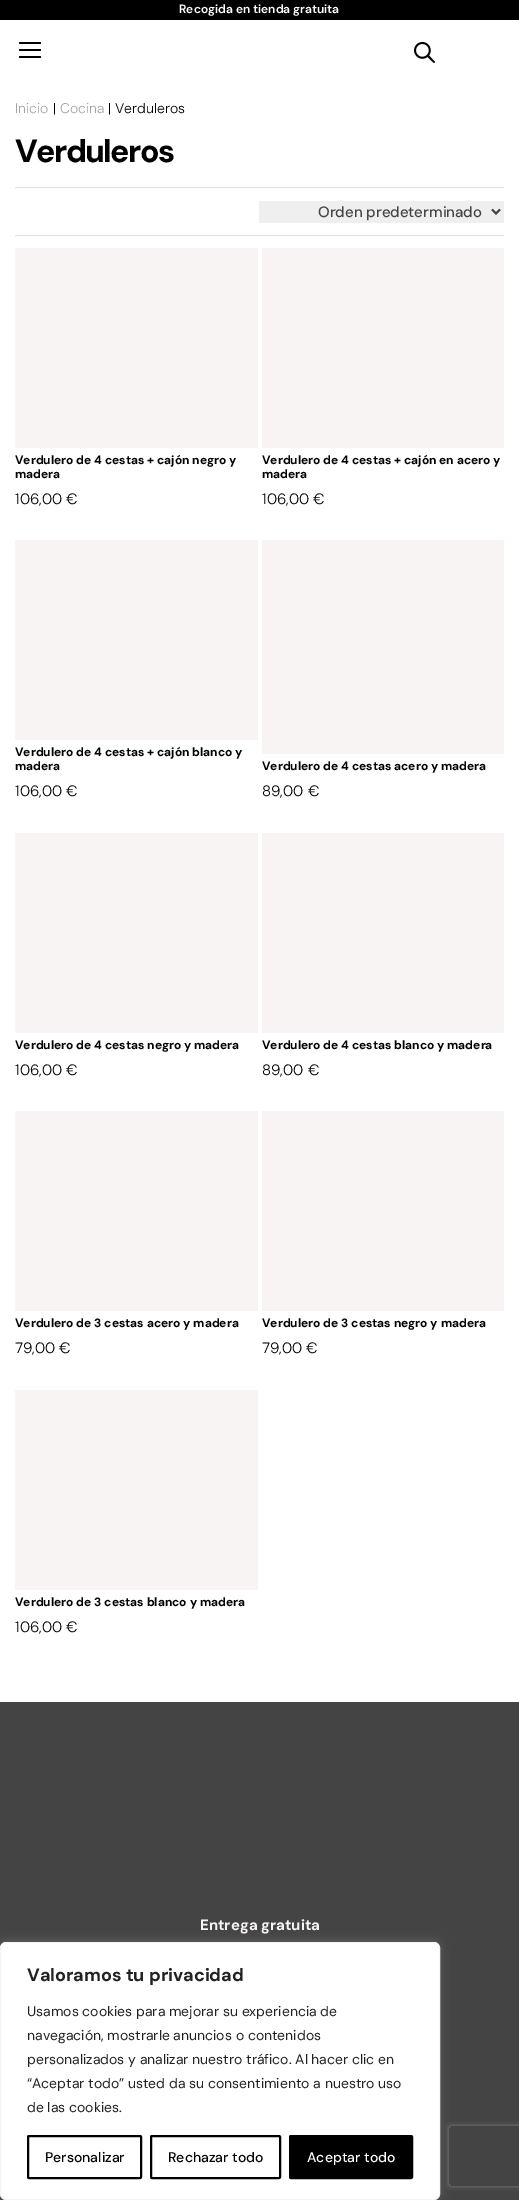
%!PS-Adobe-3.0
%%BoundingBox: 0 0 519 2200
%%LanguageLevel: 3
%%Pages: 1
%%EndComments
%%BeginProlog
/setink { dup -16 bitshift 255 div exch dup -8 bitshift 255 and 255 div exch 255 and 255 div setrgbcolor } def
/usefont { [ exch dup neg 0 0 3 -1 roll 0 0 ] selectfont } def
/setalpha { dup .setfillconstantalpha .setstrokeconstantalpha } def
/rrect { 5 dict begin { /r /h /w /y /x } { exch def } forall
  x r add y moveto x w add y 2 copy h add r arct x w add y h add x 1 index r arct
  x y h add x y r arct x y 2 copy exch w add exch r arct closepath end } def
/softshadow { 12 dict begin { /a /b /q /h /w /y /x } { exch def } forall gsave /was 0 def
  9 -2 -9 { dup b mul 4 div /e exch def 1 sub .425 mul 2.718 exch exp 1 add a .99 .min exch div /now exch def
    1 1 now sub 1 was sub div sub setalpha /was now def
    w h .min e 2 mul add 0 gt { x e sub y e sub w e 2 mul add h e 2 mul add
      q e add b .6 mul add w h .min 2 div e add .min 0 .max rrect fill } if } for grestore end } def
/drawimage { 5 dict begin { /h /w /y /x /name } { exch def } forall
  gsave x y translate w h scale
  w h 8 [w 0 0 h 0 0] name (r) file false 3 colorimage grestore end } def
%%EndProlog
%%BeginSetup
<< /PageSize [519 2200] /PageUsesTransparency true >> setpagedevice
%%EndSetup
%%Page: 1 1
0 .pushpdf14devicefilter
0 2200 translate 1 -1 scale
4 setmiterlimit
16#FFFFFF setink
0 0 519 2200 rectfill
16#000000 setink
0 0 519 20 rectfill
/DMSans-SemiBold 12 usefont
16#FFFFFF setink
179 13 moveto (Recogida en tienda gratuita) show
16#000000 setink
19 49 22 2 1 rrect fill
19 42 22 2 1 rrect fill
19 56 22 2 1 rrect fill
(img1.raw) 414 42 21 21 drawimage
/DMSans-Light 14 usefont
16#A9A1A1 setink
15 113 moveto (Inicio) show
16#000000 setink
53 113 moveto (|) show
16#A9A1A1 setink
60 113 moveto (Cocina) show
16#000000 setink
108 113 moveto (| Verduleros) show
/DMSans-ExtraBold 32 usefont
15 162 moveto -1.6 0 (Verduleros) ashow
[
    [15 187 489 1 16#DDDDDD]
    [15 235 489 1 16#DDDDDD]
    [259 201 245 22 16#EFEFEF]
] { aload pop setink rectfill } forall
16#444444 setink
2 setlinewidth
492 209.5 moveto 496 213.5 lineto 500 209.5 lineto stroke
/DMSans-Medium 15 usefont
318 217 moveto (Orden predeterminado) show
16#F8F4F4 setink
15 248 243 200 rectfill
/DMSans-Bold 12 usefont
16#000000 setink
15 464 moveto (Verdulero de 4 cestas + cajón negro y) show
15 478 moveto (madera) show
/DMSans-Light 15 usefont
15 504 moveto (106,00 €) show
16#F8F4F4 setink
262 248 242 200 rectfill
/DMSans-Bold 12 usefont
16#000000 setink
262 464 moveto (Verdulero de 4 cestas + cajón en acero y) show
262 478 moveto (madera) show
/DMSans-Light 15 usefont
262 504 moveto (106,00 €) show
16#F8F4F4 setink
15 540 243 200 rectfill
/DMSans-Bold 12 usefont
16#000000 setink
15 756 moveto (Verdulero de 4 cestas + cajón blanco y) show
15 770 moveto (madera) show
/DMSans-Light 15 usefont
15 796 moveto (106,00 €) show
16#F8F4F4 setink
262 540 242 214 rectfill
/DMSans-Bold 12 usefont
16#000000 setink
262 770 moveto (Verdulero de 4 cestas acero y madera) show
/DMSans-Light 15 usefont
262 796 moveto (89,00 €) show
16#F8F4F4 setink
15 833 243 200 rectfill
/DMSans-Bold 12 usefont
16#000000 setink
15 1049 moveto (Verdulero de 4 cestas negro y madera) show
/DMSans-Light 15 usefont
15 1075 moveto (106,00 €) show
16#F8F4F4 setink
262 833 242 200 rectfill
/DMSans-Bold 12 usefont
16#000000 setink
262 1049 moveto (Verdulero de 4 cestas blanco y madera) show
/DMSans-Light 15 usefont
262 1075 moveto (89,00 €) show
16#F8F4F4 setink
15 1111 243 200 rectfill
/DMSans-Bold 12 usefont
16#000000 setink
15 1327 moveto (Verdulero de 3 cestas acero y madera) show
/DMSans-Light 15 usefont
15 1353 moveto (79,00 €) show
16#F8F4F4 setink
262 1111 242 200 rectfill
/DMSans-Bold 12 usefont
16#000000 setink
262 1327 moveto (Verdulero de 3 cestas negro y madera) show
/DMSans-Light 15 usefont
262 1353 moveto (79,00 €) show
16#F8F4F4 setink
15 1390 243 200 rectfill
/DMSans-Bold 12 usefont
16#000000 setink
15 1606 moveto (Verdulero de 3 cestas blanco y madera) show
/DMSans-Light 15 usefont
15 1632 moveto (106,00 €) show
16#444444 setink
0 1702 519 498 rectfill
/DMSans-Bold 15 usefont
16#F8F4F4 setink
200 1930 moveto (Entrega gratuita) show
16#ACABAB setink
0 1941 440 258 6 5 0.3 softshadow
16#FFFFFF setink
0.5 1942.5 439 257 5.5 rrect gsave fill grestore
16#F4F4F4 setink
1 setlinewidth
stroke
/DMSans-Bold 18 usefont
16#212121 setink
27 1981 moveto (Valoramos tu privacidad) show
/DMSans-Regular 14 usefont
[
    [(Usamos cookies para mejorar su experiencia de) 27 2016]
    [(navegación, mostrarle anuncios o contenidos) 27 2040]
    [(personalizados y analizar nuestro tráfico. Al hacer clic en) 27 2064]
    [(“Aceptar todo” usted da su consentimiento a nuestro uso) 27 2088]
    [(de las cookies.) 27 2112]
] { aload pop moveto show } forall
16#000000 setink
2 setlinewidth
28 2136 113 42 1 rrect stroke
/DMSans-Medium 14 usefont
45 2162 moveto (Personalizar) show
151 2136 129 42 1 rrect stroke
168 2162 moveto (Rechazar todo) show
290 2136 122 42 1 rrect gsave fill grestore
stroke
16#FFFFFF setink
307 2162 moveto (Aceptar todo) show
gsave
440 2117 moveto 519 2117 lineto 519 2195 lineto 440 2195 lineto closepath 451 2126 moveto 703 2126 lineto 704 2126 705 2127 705 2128 curveto 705 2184 lineto 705 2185 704 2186 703 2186 curveto 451 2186 lineto 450 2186 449 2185 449 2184 curveto 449 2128 lineto 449 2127 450 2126 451 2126 curveto closepath eoclip newpath
16#808080 setink
449 2126 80 60 2 2.5 1 softshadow
grestore
.poppdf14devicefilter showpage
%%EOF
